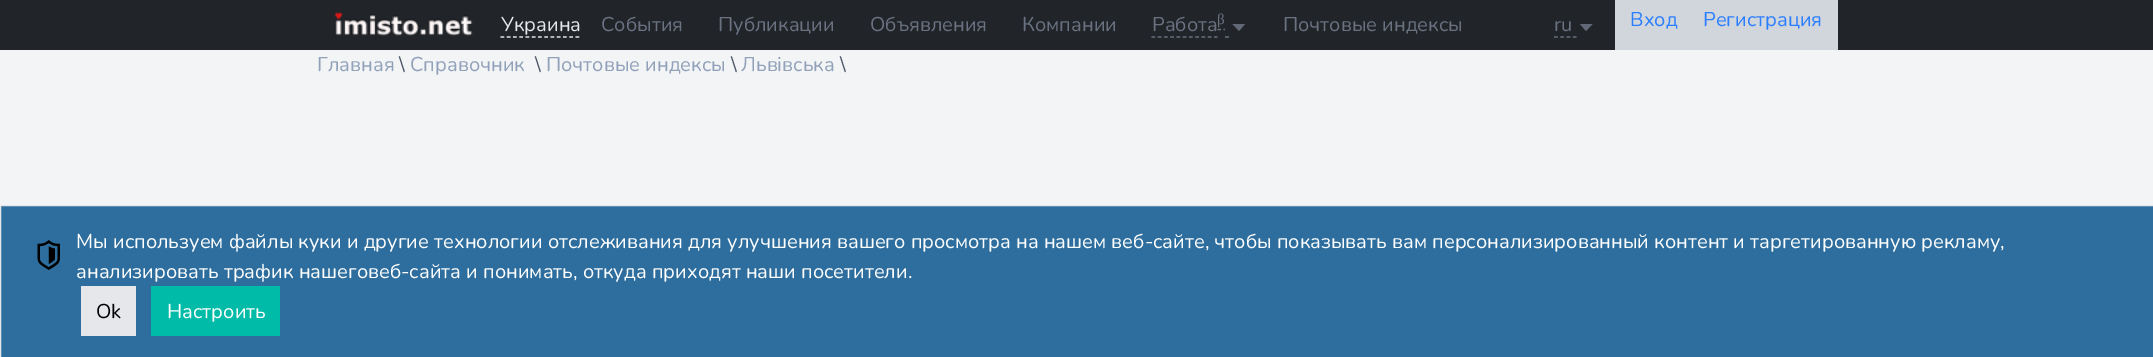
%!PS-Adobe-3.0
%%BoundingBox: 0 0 2153 357
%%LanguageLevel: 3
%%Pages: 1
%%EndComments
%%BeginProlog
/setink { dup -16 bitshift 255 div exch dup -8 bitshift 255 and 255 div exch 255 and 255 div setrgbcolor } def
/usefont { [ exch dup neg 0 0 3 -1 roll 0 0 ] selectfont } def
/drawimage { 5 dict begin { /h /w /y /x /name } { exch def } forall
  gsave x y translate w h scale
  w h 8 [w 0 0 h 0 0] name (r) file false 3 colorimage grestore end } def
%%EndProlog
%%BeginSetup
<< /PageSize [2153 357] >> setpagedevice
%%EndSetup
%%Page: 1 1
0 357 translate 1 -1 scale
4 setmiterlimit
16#F3F4F6 setink
0 0 2153 357 rectfill
16#212529 setink
0 0 2153 50 rectfill
(img1.raw) 334 12 139 24 drawimage
/Nunito-Regular 20 usefont
16#E5E7EB setink
501 31 moveto (Украина) show
1.2 setlinewidth
[3.75 2.5] 0 setdash
500.5 37 moveto 581 37 lineto stroke
16#6A7282 setink
[
    [(События) 601 31]
    [(Публикации) 718 31]
    [(Объявления) 870 31]
    [(Компании) 1022 31]
    [(Работа) 1152 31]
] { aload pop moveto show } forall
1151.5 37 moveto 1217.5 37 lineto stroke
/LiberationSerif-Regular 15 usefont
1217 24 moveto (β) show
[] 0 setdash
1217.5 29.5 moveto 1221 29.5 lineto 1223.5 29.5 moveto 1225 29.5 lineto stroke
16#626875 setink
1232.5 24 moveto 1245 24 lineto 1239 31 lineto closepath fill
16#6A7282 setink
1225 37 moveto 1229 37 lineto stroke
/Nunito-Regular 20 usefont
1283 31 moveto (Почтовые индексы) show
1554 31 moveto (ru) show
[3.75 2.5] 0 setdash
1554 37 moveto 1577.5 37 lineto stroke
16#626875 setink
1580 24 moveto 1592.5 24 lineto 1586 31 lineto closepath fill
16#D1D5DC setink
1615 0 223 50 rectfill
16#2B7FFF setink
1630 26 moveto (Вход) show
1703 26 moveto (Регистрация) show
16#90A1B9 setink
317 71 moveto (Главная) show
16#4A5565 setink
399 71 moveto (\\) show
16#90A1B9 setink
410 71 moveto (Справочник) show
16#4A5565 setink
535 71 moveto (\\) show
16#90A1B9 setink
546 71 moveto (Почтовые индексы) show
16#4A5565 setink
731 71 moveto (\\) show
16#90A1B9 setink
741 71 moveto (Львівська) show
16#4A5565 setink
840 71 moveto (\\) show
16#2E6E9E setink
0.5 205.5 moveto 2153.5 205.5 lineto 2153.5 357.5 lineto 0.5 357.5 lineto closepath gsave fill grestore
16#E5E7EB setink
1 setlinewidth
[] 0 setdash
stroke
(img2.raw) 37 240 23 30 drawimage
16#FFFFFF setink
76 248 moveto (Мы используем файлы куки и другие технологии отслеживания для улучшения вашего просмотра на нашем веб-сайте, чтобы показывать вам персонализированный контент и таргетированную рекламу,) show
76 278 moveto (анализировать трафик нашеговеб-сайта и понимать, откуда приходят наши посетители.) show
16#E5E7EB setink
81 286 55 50 rectfill
16#000000 setink
96 318 moveto (Ok) show
16#00BBA7 setink
151 286 129 50 rectfill
16#FFFFFF setink
167 318 moveto (Настроить) show
showpage
%%EOF
